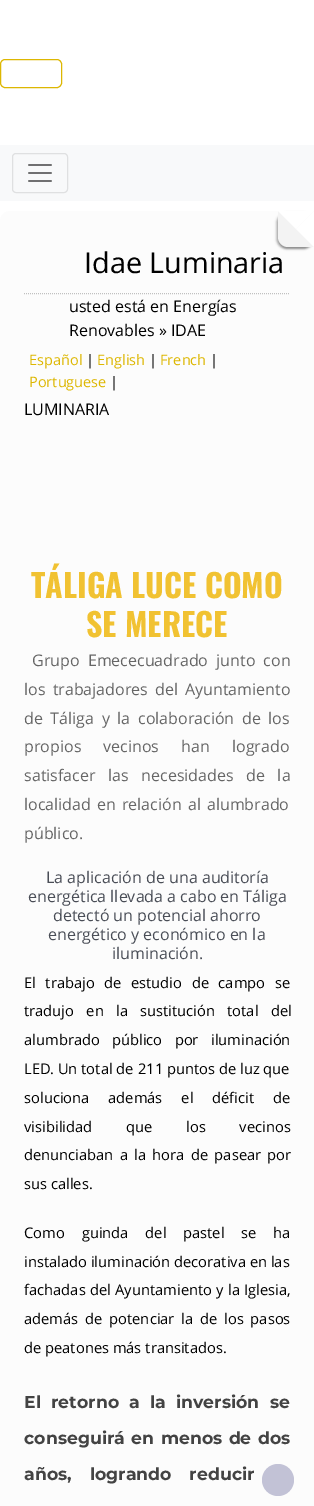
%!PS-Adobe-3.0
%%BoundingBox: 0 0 314 1506
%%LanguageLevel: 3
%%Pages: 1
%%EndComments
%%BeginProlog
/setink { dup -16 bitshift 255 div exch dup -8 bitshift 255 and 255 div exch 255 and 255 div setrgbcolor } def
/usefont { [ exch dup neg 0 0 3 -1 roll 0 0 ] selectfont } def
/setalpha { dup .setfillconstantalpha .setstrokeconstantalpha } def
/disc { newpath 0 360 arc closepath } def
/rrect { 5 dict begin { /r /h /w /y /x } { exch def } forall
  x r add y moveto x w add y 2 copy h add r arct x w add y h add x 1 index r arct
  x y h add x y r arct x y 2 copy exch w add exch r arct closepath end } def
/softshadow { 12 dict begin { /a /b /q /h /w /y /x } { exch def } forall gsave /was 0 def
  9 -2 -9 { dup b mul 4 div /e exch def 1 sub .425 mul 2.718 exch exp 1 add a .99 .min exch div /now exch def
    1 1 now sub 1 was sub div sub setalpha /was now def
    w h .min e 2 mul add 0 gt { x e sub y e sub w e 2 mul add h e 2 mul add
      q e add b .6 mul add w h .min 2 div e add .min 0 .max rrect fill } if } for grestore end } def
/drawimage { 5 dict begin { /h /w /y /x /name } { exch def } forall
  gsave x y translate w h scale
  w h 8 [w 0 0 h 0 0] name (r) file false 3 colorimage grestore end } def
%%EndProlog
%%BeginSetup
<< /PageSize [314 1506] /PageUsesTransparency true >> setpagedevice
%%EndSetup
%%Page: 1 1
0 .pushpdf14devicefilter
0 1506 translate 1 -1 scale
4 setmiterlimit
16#FFFFFF setink
0 0 314 1506 rectfill
16#DDB702 setink
0.5 59.5 61 28 4.5 rrect stroke
16#F8F9FA setink
0 145 314 56 rectfill
16#DFE0E1 setink
12.5 153.5 55 39 3.5 rrect stroke
(img1.raw) 28 164 24 18 drawimage
16#FCFCFC setink
10 211 moveto 314 211 lineto 314 1506 lineto 314 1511.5 309.5 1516 304 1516 curveto 10 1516 lineto 4.5 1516 0 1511.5 0 1506 curveto 0 221 lineto 0 215.5 4.5 211 10 211 curveto closepath fill
16#000000 setink
276 213 36 36 10 1 0.2 softshadow
278 213 36 36 10 1 0.3 softshadow
16#F3F3F3 setink
278 211 moveto 314 211 lineto 314 247 lineto 288 247 lineto 282.5 247 278 242.5 278 237 curveto closepath fill
16#FFFFFF setink
278 211 moveto 296 229 lineto 314 211 lineto closepath fill
314 211 moveto 296 229 lineto 314 247 lineto closepath fill
16#C0C0C0 setink
[1 1] 0 setdash
24 293.5 moveto 290 293.5 lineto stroke
/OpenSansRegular-Regular 28.75 usefont
16#000000 setink
84 273 moveto (Idae Luminaria) show
/OpenSansRegular-Regular 16 usefont
[
    [(usted está en Energías) 69 312]
    [(Renovables » IDAE) 69 336]
    [(LUMINARIA) 24 415]
] { aload pop moveto show } forall
/OpenSansRegular-Regular 14.5 usefont
16#DDB702 setink
29 365 moveto (Español) show
16#000000 setink
86 365 moveto (|) show
16#DDB702 setink
97 365 moveto (English) show
16#000000 setink
149 365 moveto (|) show
16#DDB702 setink
160 365 moveto (French) show
16#000000 setink
210 365 moveto (|) show
16#DDB702 setink
29 387 moveto (Portuguese) show
16#000000 setink
110 387 moveto (|) show
/Oswald-Bold 32 usefont
16#F1C232 setink
31 598 moveto (TÁLIGA LUCE COMO) show
86 637 moveto (SE MERECE) show
/OpenSansRegular-Regular 16 usefont
16#666666 setink
32 666 moveto 4 0 32 (Grupo Emececuadrado junto con) widthshow
24 695 moveto 3 0 32 (los trabajadores del Ayuntamiento) widthshow
24 724 moveto 3.5 0 32 (de Táliga y la colaboración de los) widthshow
24 752 moveto 18 0 32 (propios vecinos han logrado) widthshow
24 781 moveto 8.5 0 32 (satisfacer las necesidades de la) widthshow
24 810 moveto 2 0 32 (localidad en relación al alumbrado) widthshow
24 839 moveto (público.) show
16#4A4E57 setink
[
    [(La aplicación de una auditoría) 46 883]
    [(energética llevada a cabo en Táliga) 28 902]
    [(detectó un potencial ahorro) 53 921]
    [(energético y económico en la) 48 940]
    [(iluminación.) 112 959]
] { aload pop moveto show } forall
/OpenSansRegular-Regular 14.7 usefont
16#000000 setink
24 988 moveto 5.75 0 32 (El trabajo de estudio de campo se) widthshow
24 1016 moveto 8.5 0 32 (tradujo en la sustitución total del) widthshow
24 1045 moveto 8.5 0 32 (alumbrado público por iluminación) widthshow
[
    [(LED) 24 1074]
    [(. Un total de) 50 1074]
    [(211 puntos de luz que) 138 1074]
] { aload pop moveto show } forall
24 1103 moveto 15 0 32 (soluciona además el déficit de) widthshow
24 1132 moveto 30 0 32 (visibilidad que los vecinos) widthshow
24 1160 moveto 2.5 0 32 (denunciaban a la hora de pasear por) widthshow
24 1189 moveto (sus calles.) show
24 1238 moveto 13 0 32 (Como guinda del pastel se ha) widthshow
24 1267 moveto (instalado iluminación decorativa en las) show
24 1295 moveto 0.5 0 32 (fachadas del Ayuntamiento y la Iglesia,) widthshow
24 1324 moveto 3 0 32 (además de potenciar la de los pasos) widthshow
24 1353 moveto (de peatones más transitados.) show
/Montserrat-Bold 17.3 usefont
16#434343 setink
24 1408 moveto 5.25 0 32 (El retorno a la inversión se) widthshow
24 1444 moveto 1.5 0 32 (conseguirá en menos de dos) widthshow
24 1480 moveto 13 0 32 (años, logrando reducir) widthshow
16#C2C2D6 setink
278 1480 16 disc fill
.poppdf14devicefilter showpage
%%EOF
